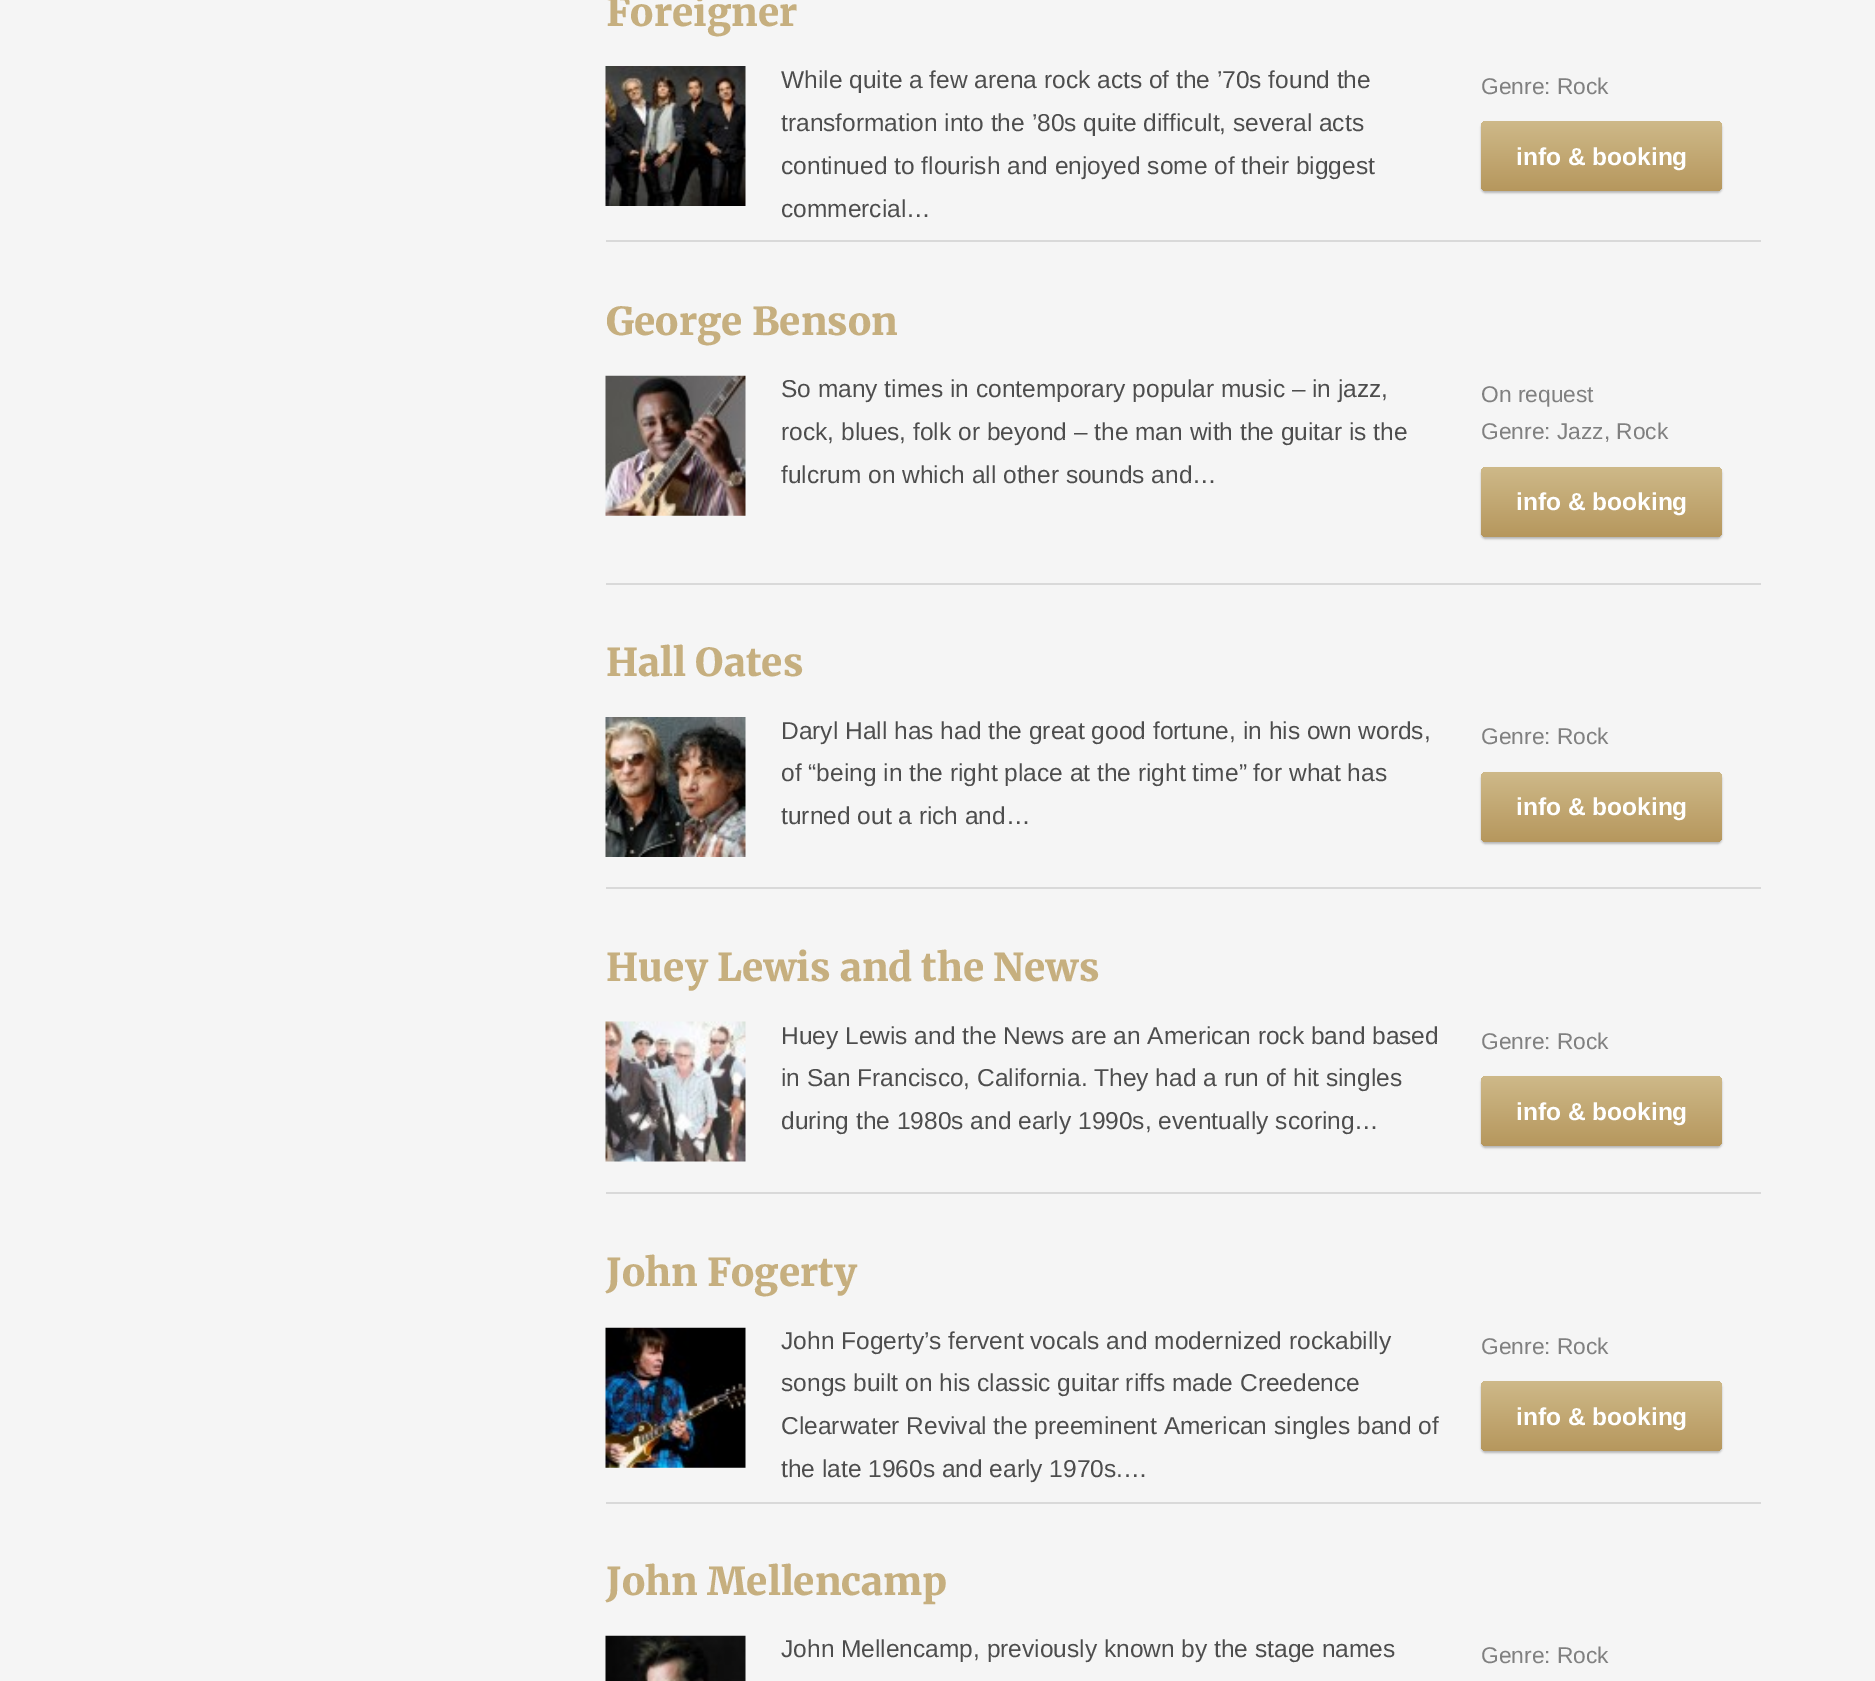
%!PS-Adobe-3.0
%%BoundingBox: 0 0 1875 1681
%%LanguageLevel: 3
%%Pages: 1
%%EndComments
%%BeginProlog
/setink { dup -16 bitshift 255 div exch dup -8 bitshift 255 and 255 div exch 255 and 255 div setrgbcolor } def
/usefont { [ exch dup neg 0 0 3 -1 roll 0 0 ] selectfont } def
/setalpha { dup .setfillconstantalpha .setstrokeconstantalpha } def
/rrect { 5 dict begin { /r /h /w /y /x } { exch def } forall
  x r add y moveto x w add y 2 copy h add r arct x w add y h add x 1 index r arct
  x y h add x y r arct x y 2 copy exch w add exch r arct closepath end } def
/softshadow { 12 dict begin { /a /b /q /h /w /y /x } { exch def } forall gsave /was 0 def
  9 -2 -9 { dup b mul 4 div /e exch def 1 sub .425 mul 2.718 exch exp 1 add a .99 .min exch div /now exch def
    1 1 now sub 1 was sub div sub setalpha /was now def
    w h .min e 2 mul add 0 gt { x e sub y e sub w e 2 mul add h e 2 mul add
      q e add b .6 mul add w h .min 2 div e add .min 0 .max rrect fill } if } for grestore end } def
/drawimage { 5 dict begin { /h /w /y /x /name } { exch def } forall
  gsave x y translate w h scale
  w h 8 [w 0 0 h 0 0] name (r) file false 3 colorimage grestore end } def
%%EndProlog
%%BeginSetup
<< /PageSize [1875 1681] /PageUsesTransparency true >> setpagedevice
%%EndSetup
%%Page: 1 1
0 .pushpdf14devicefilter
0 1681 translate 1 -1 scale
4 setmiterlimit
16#F5F5F5 setink
0 0 1875 1681 rectfill
16#D9D9D9 setink
606 240 1155 2 rectfill
/Merriweather-Black 38.5 usefont
16#C6AF7F setink
606 26 moveto (Foreigner) show
(img1.raw) 605 66 141 140 drawimage
/LiberationSans-Regular 24.5 usefont
16#4D4D4D setink
[
    [(While quite a few arena rock acts of the ’70s found the) 781 88]
    [(transformation into the ’80s quite difficult, several acts) 781 131]
    [(continued to flourish and enjoyed some of their biggest) 781 174]
    [(commercial…) 781 217]
] { aload pop moveto show } forall
/LiberationSans-Regular 22.75 usefont
16#808080 setink
1481 94 moveto (Genre: Rock) show
16#000000 setink
1481 123 241 70 5 1 0.25 softshadow
gsave 1481 121 241 70 5 rrect clip newpath
<< /ShadingType 2 /ColorSpace /DeviceRGB /Coords [1601 121 1601 191] /Extend [true true] /Function << /FunctionType 2 /Domain [0 1] /C0 [0.808 0.725 0.537] /C1 [0.714 0.592 0.365] /N 1 >> >> shfill grestore
/LiberationSans-Bold 24.5 usefont
16#FFFFFF setink
1516 165 moveto (info & booking) show
16#D9D9D9 setink
606 583 1155 2 rectfill
/Merriweather-Black 38.5 usefont
16#C6AF7F setink
606 335 moveto (George Benson) show
(img2.raw) 605 375 141 141 drawimage
/LiberationSans-Regular 24.5 usefont
16#4D4D4D setink
[
    [(So many times in contemporary popular music – in jazz,) 781 397]
    [(rock, blues, folk or beyond – the man with the guitar is the) 781 440]
    [(fulcrum on which all other sounds and…) 781 483]
] { aload pop moveto show } forall
/LiberationSans-Regular 22.75 usefont
16#808080 setink
1481 402 moveto (On request) show
1481 439 moveto (Genre: Jazz, Rock) show
16#000000 setink
1481 469 241 70 5 1 0.25 softshadow
gsave 1481 467 241 70 5 rrect clip newpath
<< /ShadingType 2 /ColorSpace /DeviceRGB /Coords [1601 467 1601 537] /Extend [true true] /Function << /FunctionType 2 /Domain [0 1] /C0 [0.808 0.725 0.537] /C1 [0.714 0.592 0.365] /N 1 >> >> shfill grestore
/LiberationSans-Bold 24.5 usefont
16#FFFFFF setink
1516 510 moveto (info & booking) show
16#D9D9D9 setink
606 887 1155 2 rectfill
/Merriweather-Black 38.5 usefont
16#C6AF7F setink
606 676 moveto (Hall Oates) show
(img3.raw) 605 717 141 140 drawimage
/LiberationSans-Regular 24.5 usefont
16#4D4D4D setink
[
    [(Daryl Hall has had the great good fortune, in his own words,) 781 739]
    [(of “being in the right place at the right time” for what has) 781 781]
    [(turned out a rich and…) 781 824]
] { aload pop moveto show } forall
/LiberationSans-Regular 22.75 usefont
16#808080 setink
1481 744 moveto (Genre: Rock) show
16#000000 setink
1481 774 241 70 5 1 0.25 softshadow
gsave 1481 772 241 70 5 rrect clip newpath
<< /ShadingType 2 /ColorSpace /DeviceRGB /Coords [1601 772 1601 842] /Extend [true true] /Function << /FunctionType 2 /Domain [0 1] /C0 [0.808 0.725 0.537] /C1 [0.714 0.592 0.365] /N 1 >> >> shfill grestore
/LiberationSans-Bold 24.5 usefont
16#FFFFFF setink
1516 815 moveto (info & booking) show
16#D9D9D9 setink
606 1192 1155 2 rectfill
/Merriweather-Black 38.5 usefont
16#C6AF7F setink
606 981 moveto (Huey Lewis and the News) show
(img4.raw) 605 1021 141 141 drawimage
/LiberationSans-Regular 24.5 usefont
16#4D4D4D setink
[
    [(Huey Lewis and the News are an American rock band based) 781 1044]
    [(in San Francisco, California. They had a run of hit singles) 781 1086]
    [(during the 1980s and early 1990s, eventually scoring…) 781 1129]
] { aload pop moveto show } forall
/LiberationSans-Regular 22.75 usefont
16#808080 setink
1481 1049 moveto (Genre: Rock) show
16#000000 setink
1481 1078 241 70 5 1 0.25 softshadow
gsave 1481 1076 241 70 5 rrect clip newpath
<< /ShadingType 2 /ColorSpace /DeviceRGB /Coords [1601 1076 1601 1146] /Extend [true true] /Function << /FunctionType 2 /Domain [0 1] /C0 [0.808 0.725 0.537] /C1 [0.714 0.592 0.365] /N 1 >> >> shfill grestore
/LiberationSans-Bold 24.5 usefont
16#FFFFFF setink
1516 1120 moveto (info & booking) show
16#D9D9D9 setink
606 1502 1155 2 rectfill
/Merriweather-Black 38.5 usefont
16#C6AF7F setink
606 1286 moveto (John Fogerty) show
(img5.raw) 605 1327 141 141 drawimage
/LiberationSans-Regular 24.5 usefont
16#4D4D4D setink
[
    [(John Fogerty’s fervent vocals and modernized rockabilly) 781 1349]
    [(songs built on his classic guitar riffs made Creedence) 781 1391]
    [(Clearwater Revival the preeminent American singles band of) 781 1434]
    [(the late 1960s and early 1970s.…) 781 1477]
] { aload pop moveto show } forall
/LiberationSans-Regular 22.75 usefont
16#808080 setink
1481 1354 moveto (Genre: Rock) show
16#000000 setink
1481 1383 241 70 5 1 0.25 softshadow
gsave 1481 1381 241 70 5 rrect clip newpath
<< /ShadingType 2 /ColorSpace /DeviceRGB /Coords [1601 1381 1601 1451] /Extend [true true] /Function << /FunctionType 2 /Domain [0 1] /C0 [0.808 0.725 0.537] /C1 [0.714 0.592 0.365] /N 1 >> >> shfill grestore
/LiberationSans-Bold 24.5 usefont
16#FFFFFF setink
1516 1425 moveto (info & booking) show
/Merriweather-Black 38.5 usefont
16#C6AF7F setink
606 1595 moveto (John Mellencamp) show
(img6.raw) 605 1635 141 46 drawimage
/LiberationSans-Regular 24.5 usefont
16#4D4D4D setink
781 1657 moveto (John Mellencamp, previously known by the stage names) show
/LiberationSans-Regular 22.75 usefont
16#808080 setink
1481 1663 moveto (Genre: Rock) show
.poppdf14devicefilter showpage
%%EOF
